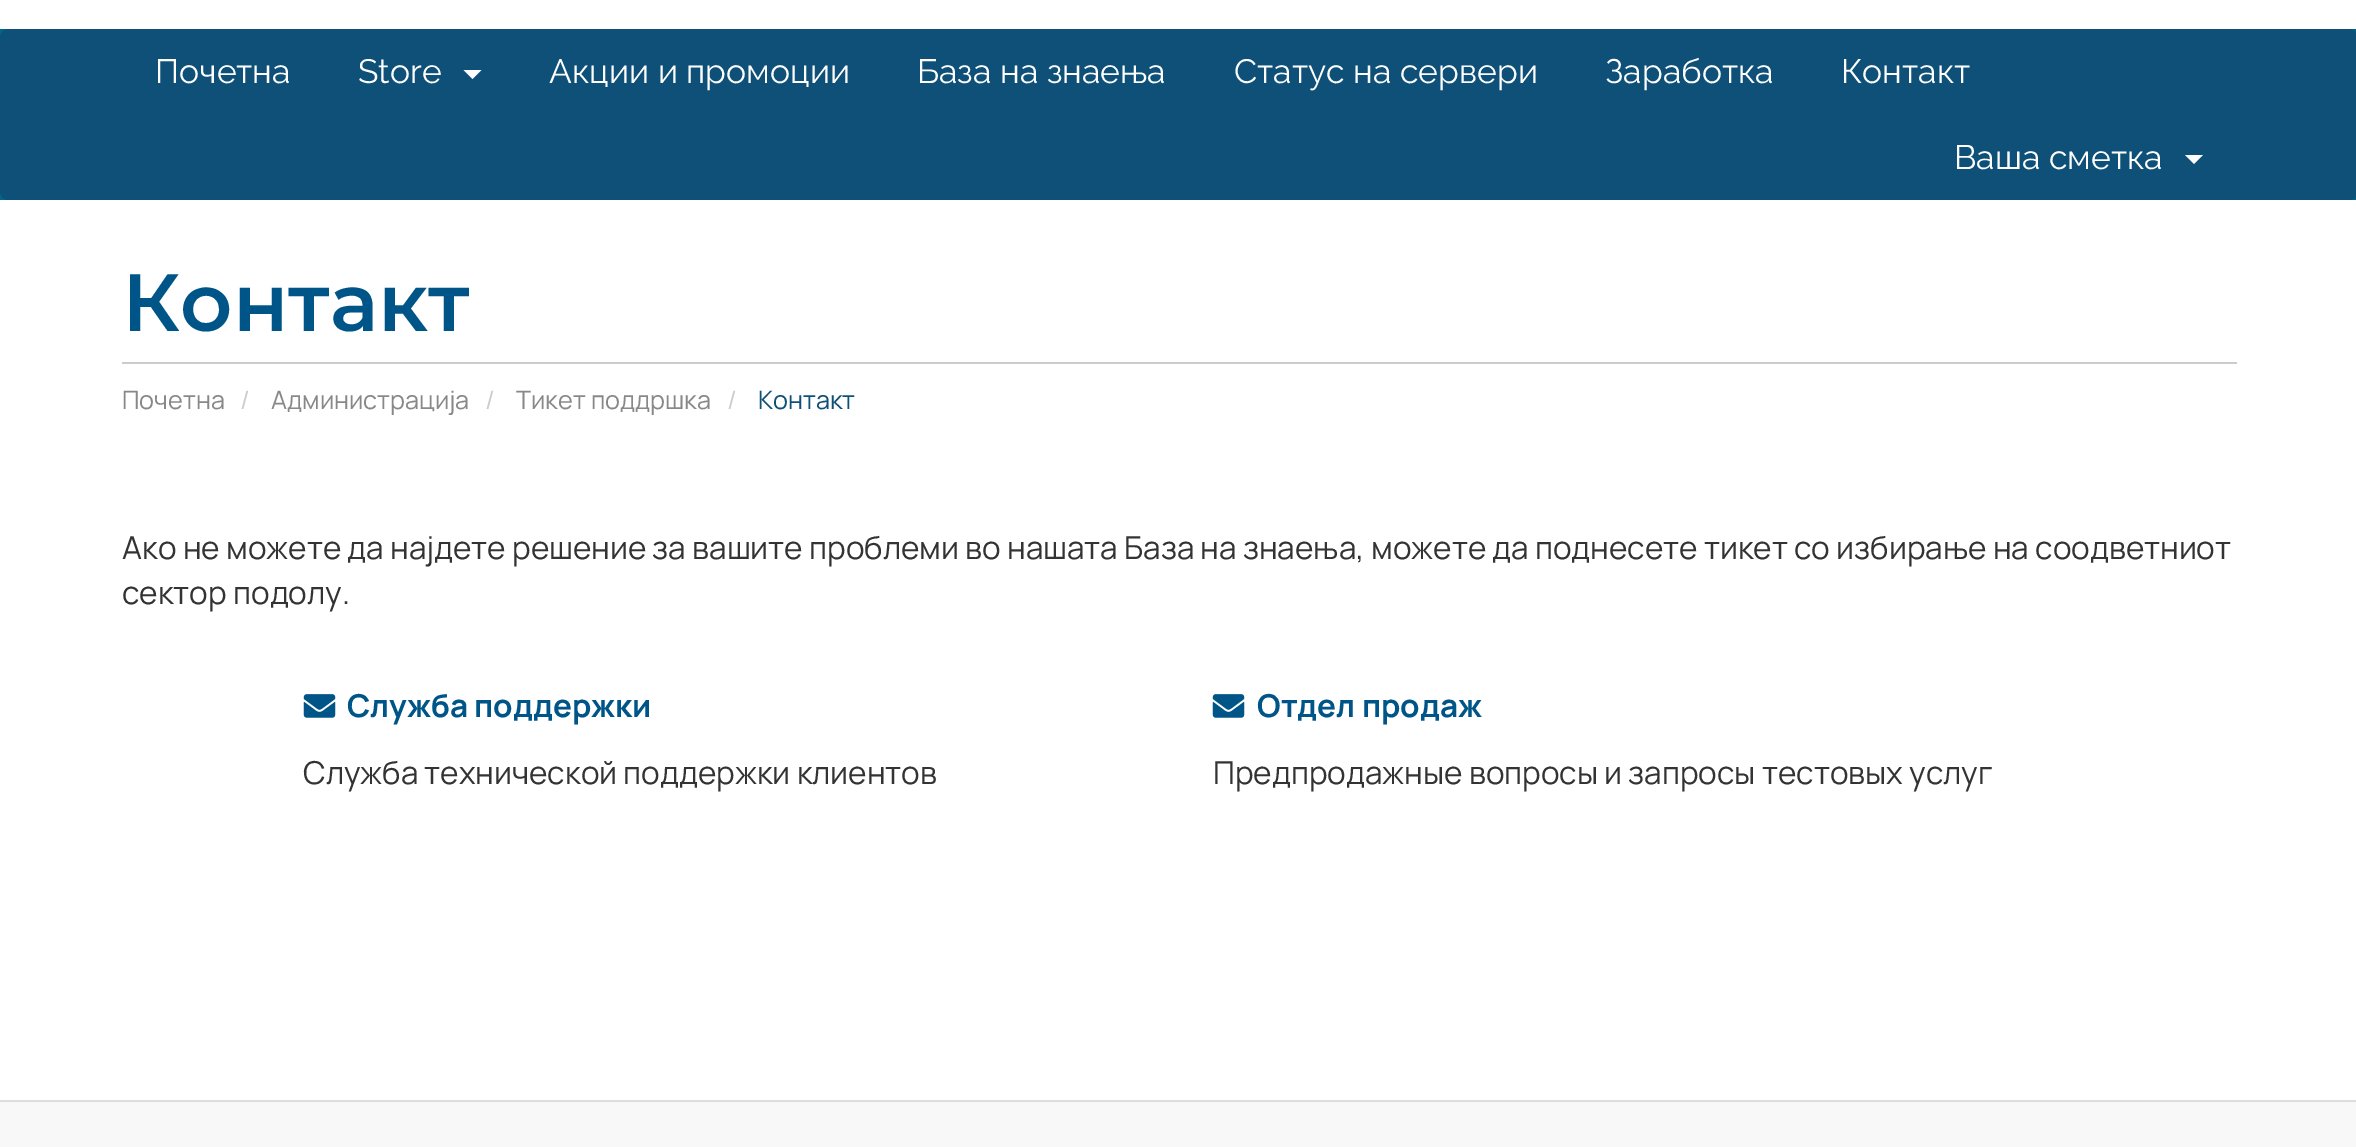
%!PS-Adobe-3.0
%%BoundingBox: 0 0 2356 1147
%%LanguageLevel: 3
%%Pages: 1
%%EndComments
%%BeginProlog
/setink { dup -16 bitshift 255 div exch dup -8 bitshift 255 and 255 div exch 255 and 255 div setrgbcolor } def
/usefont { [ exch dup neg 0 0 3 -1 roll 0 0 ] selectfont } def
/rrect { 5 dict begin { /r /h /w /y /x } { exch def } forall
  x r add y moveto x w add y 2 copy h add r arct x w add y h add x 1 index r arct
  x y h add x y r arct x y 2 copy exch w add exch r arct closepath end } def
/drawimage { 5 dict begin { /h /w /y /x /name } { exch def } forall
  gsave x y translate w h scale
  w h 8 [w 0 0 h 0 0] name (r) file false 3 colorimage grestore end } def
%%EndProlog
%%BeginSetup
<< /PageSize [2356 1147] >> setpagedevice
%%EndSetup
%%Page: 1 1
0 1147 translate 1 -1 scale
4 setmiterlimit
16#F8F8F8 setink
0 0 2356 1147 rectfill
16#FFFFFF setink
0 0 2356 29 rectfill
16#006687 setink
0 29 2356 171 rectfill
16#0E5077 setink
0 29 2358 171 9 rrect fill
/Raleway-Regular 33.75 usefont
16#FFFFFF setink
155 83 moveto (Почетна) show
358 83 moveto (Store) show
463.5 70 moveto 481.5 70 lineto 472.5 79 lineto closepath fill
[
    [(Акции и промоции) 549 83]
    [(База на знаења) 917 83]
    [(Статус на сервери) 1234 83]
    [(Заработка) 1605 83]
    [(Контакт) 1841 83]
    [(Ваша сметка) 1954 169]
] { aload pop moveto show } forall
2185 155 moveto 2203 155 lineto 2194 164 lineto closepath fill
0 200 2356 900 rectfill
16#CCCCCC setink
122 362 2115 2 rectfill
/Montserrat-SemiBold 81 usefont
16#005588 setink
122 331 moveto (Контакт) show
/Manrope-Regular 25.25 usefont
16#888888 setink
122 409 moveto (Почетна) show
16#CCCCCC setink
240 409 moveto (/) show
16#888888 setink
271 409 moveto (Администрација) show
16#CCCCCC setink
485 409 moveto (/) show
16#888888 setink
516 409 moveto (Тикет поддршка) show
16#CCCCCC setink
727 409 moveto (/) show
16#0E5077 setink
758 409 moveto (Контакт) show
/Manrope-Regular 31.5 usefont
16#333333 setink
122 559 moveto (Ако не можете да најдете решение за вашите проблеми во нашата База на знаења, можете да поднесете тикет со избирање на соодветниот) show
122 604 moveto (сектор подолу.) show
(img1.raw) 303 694 33 24 drawimage
/Manrope-Bold 31.5 usefont
16#005588 setink
347 717 moveto (Служба поддержки) show
/Manrope-Regular 31.5 usefont
16#333333 setink
303 784 moveto (Служба технической поддержки клиентов) show
(img1.raw) 1212 694 33 24 drawimage
/Manrope-Bold 31.5 usefont
16#005588 setink
1257 717 moveto (Отдел продаж) show
/Manrope-Regular 31.5 usefont
16#333333 setink
1213 784 moveto (Предпродажные вопросы и запросы тестовых услуг) show
16#DDDDDD setink
0 1100 2356 2 rectfill
showpage
%%EOF
